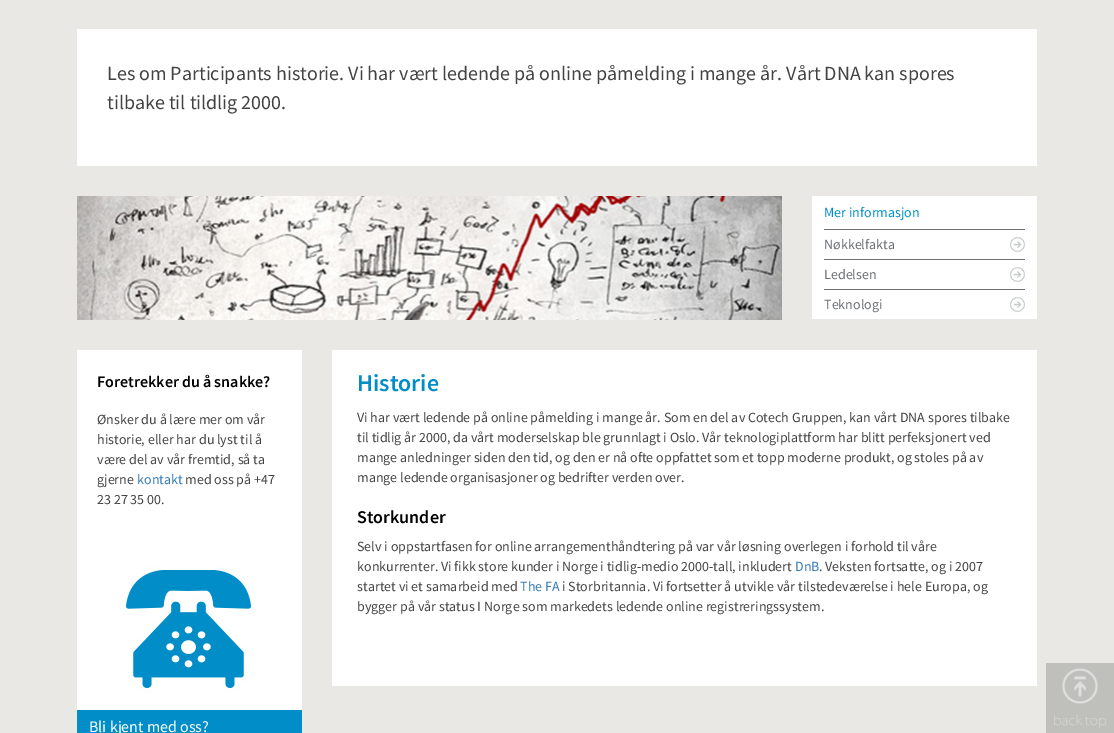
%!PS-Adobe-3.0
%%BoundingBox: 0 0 1114 733
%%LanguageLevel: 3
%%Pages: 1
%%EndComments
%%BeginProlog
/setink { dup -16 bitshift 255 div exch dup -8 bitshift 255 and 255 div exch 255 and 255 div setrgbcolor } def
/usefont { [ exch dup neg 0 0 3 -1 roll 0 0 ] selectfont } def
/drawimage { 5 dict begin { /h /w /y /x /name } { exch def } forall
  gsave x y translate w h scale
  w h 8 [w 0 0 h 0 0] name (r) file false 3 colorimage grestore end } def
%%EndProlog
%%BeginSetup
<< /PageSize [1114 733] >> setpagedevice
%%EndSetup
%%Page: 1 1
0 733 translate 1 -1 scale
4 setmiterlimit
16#E9E8E4 setink
0 0 1114 733 rectfill
16#FFFFFF setink
77 29 960 137 rectfill
/SourceSansPro-Regular 20 usefont
16#434343 setink
107 80 moveto (Les om Participants historie. Vi har vært ledende på online påmelding i mange år. Vårt DNA kan spores) show
107 109 moveto (tilbake til tildlig 2000.) show
(img1.raw) 77 196 705 124 drawimage
16#FFFFFF setink
812 196 225 123 rectfill
/SourceSansPro-Regular 14 usefont
16#018DC7 setink
824 217 moveto (Mer informasjon) show
(img2.raw) 1010 237 15 15 drawimage
16#6B6F72 setink
824 229 201 1 rectfill
824 249 moveto (Nøkkelfakta) show
(img2.raw) 1010 267 15 15 drawimage
824 259 201 1 rectfill
824 279 moveto (Ledelsen) show
(img2.raw) 1010 297 15 15 drawimage
824 289 201 1 rectfill
824 309 moveto (Teknologi) show
16#FFFFFF setink
77 350 225 360 rectfill
/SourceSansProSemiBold-SemiBold 16 usefont
16#000000 setink
97 387 moveto (Foretrekker du å snakke?) show
/SourceSansPro-Regular 14 usefont
16#434343 setink
[
    [(Ønsker du å lære mer om vår) 97 424]
    [(historie, eller har du lyst til å) 97 444]
    [(være del av vår fremtid, så ta) 97 464]
    [(gjerne) 97 484]
] { aload pop moveto show } forall
16#337AB7 setink
137 484 moveto (kontakt) show
16#434343 setink
185 484 moveto (med oss på +47) show
97 504 moveto (23 27 35 00.) show
(img3.raw) 120 566 136 127 drawimage
16#018DC7 setink
77 710 225 23 rectfill
/SourceSansPro-Regular 16 usefont
16#FFFFFF setink
89 732 moveto (Bli kjent med oss?) show
332 350 705 336 rectfill
/SourceSansProSemiBold-SemiBold 24 usefont
16#018DC7 setink
357 391 moveto (Historie) show
/SourceSansPro-Regular 14 usefont
16#434343 setink
[
    [(Vi har vært ledende på online påmelding i mange år. Som en del av Cotech Gruppen, kan vårt DNA spores tilbake) 357 422]
    [(til tidlig år 2000, da vårt moderselskap ble grunnlagt i Oslo. Vår teknologiplattform har blitt perfeksjonert ved) 357 442]
    [(mange anledninger siden den tid, og den er nå ofte oppfattet som et topp moderne produkt, og stoles på av) 357 462]
    [(mange ledende organisasjoner og bedrifter verden over.) 357 482]
] { aload pop moveto show } forall
/SourceSansProSemiBold-SemiBold 18 usefont
16#000000 setink
357 523 moveto (Storkunder) show
/SourceSansPro-Regular 14 usefont
16#434343 setink
357 551 moveto (Selv i oppstartfasen for online arrangementhåndtering på var vår løsning overlegen i forhold til våre) show
357 571 moveto (konkurrenter. Vi fikk store kunder i Norge i tidlig-medio 2000-tall, inkludert) show
16#337AB7 setink
795 571 moveto (DnB) show
16#434343 setink
819 571 moveto (. Veksten fortsatte, og i 2007) show
357 591 moveto (startet vi et samarbeid med) show
16#337AB7 setink
520 591 moveto (The FA) show
16#434343 setink
562 591 moveto (i Storbritannia. Vi fortsetter å utvikle vår tilstedeværelse i hele Europa, og) show
357 611 moveto (bygger på vår status I Norge som markedets ledende online registreringssystem.) show
16#BFBFBB setink
1046 663 68 70 rectfill
(img4.raw) 1054 668 52 60 drawimage
showpage
%%EOF
